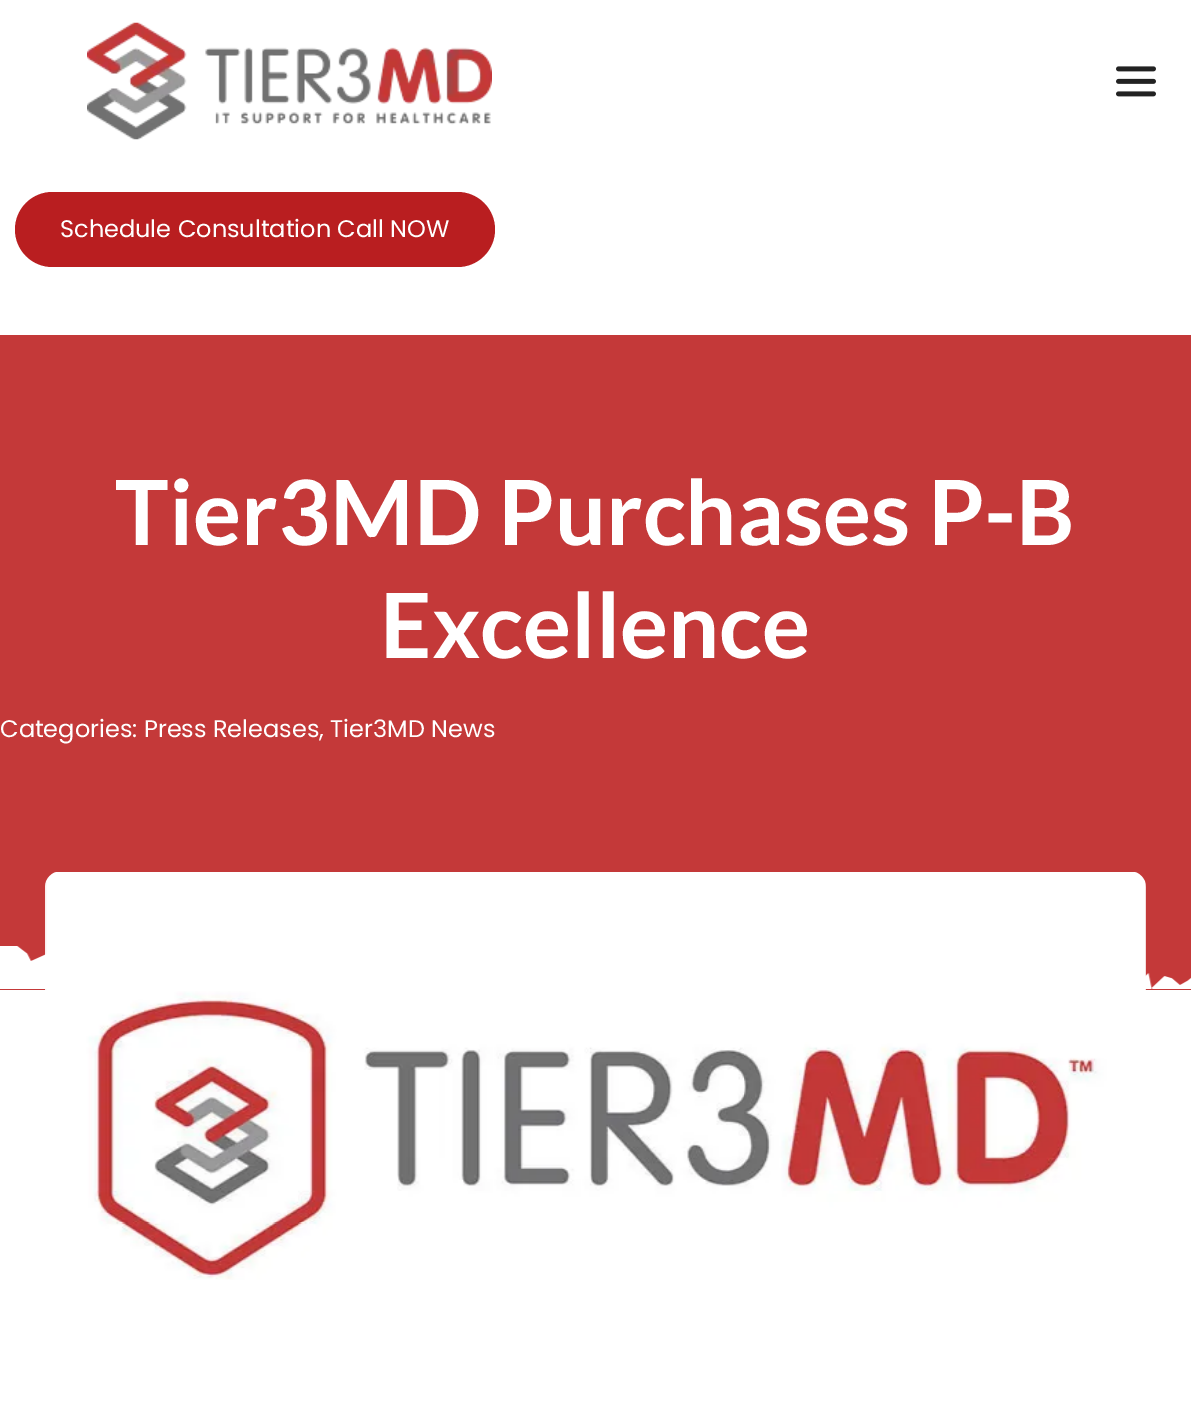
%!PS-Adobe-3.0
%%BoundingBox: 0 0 1191 1420
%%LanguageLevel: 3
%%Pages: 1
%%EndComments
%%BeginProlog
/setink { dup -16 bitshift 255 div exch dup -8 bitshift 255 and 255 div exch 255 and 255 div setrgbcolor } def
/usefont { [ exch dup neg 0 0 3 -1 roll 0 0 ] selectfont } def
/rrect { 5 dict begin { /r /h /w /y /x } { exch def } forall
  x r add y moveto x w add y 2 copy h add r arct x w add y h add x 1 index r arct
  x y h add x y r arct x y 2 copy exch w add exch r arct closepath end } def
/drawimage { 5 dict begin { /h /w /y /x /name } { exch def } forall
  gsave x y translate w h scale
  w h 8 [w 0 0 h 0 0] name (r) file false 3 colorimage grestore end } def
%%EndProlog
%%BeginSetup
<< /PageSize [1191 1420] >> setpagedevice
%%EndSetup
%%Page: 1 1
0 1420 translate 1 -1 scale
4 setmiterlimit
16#FFFFFF setink
0 0 1191 1420 rectfill
(img1.raw) 87 22 405 118 drawimage
(img2.raw) 1116 66 40 31 drawimage
16#B91E20 setink
15 192 480 75 37.5 rrect fill
/Poppins-Regular 24 usefont
16#FFFFFF setink
60 237 moveto (Schedule Consultation Call NOW) show
16#C43939 setink
0 335 1191 502 rectfill
/Lato-Bold 90 usefont
16#FFFFFF setink
115 545 moveto (Tier3MD Purchases P-B) show
380 658 moveto (Excellence) show
/Poppins-Regular 24 usefont
0 737 moveto (Categories: Press Releases, Tier3MD News) show
(img3.raw) 0 837 1191 153 drawimage
(img4.raw) 45 872 1101 408 drawimage
showpage
%%EOF
